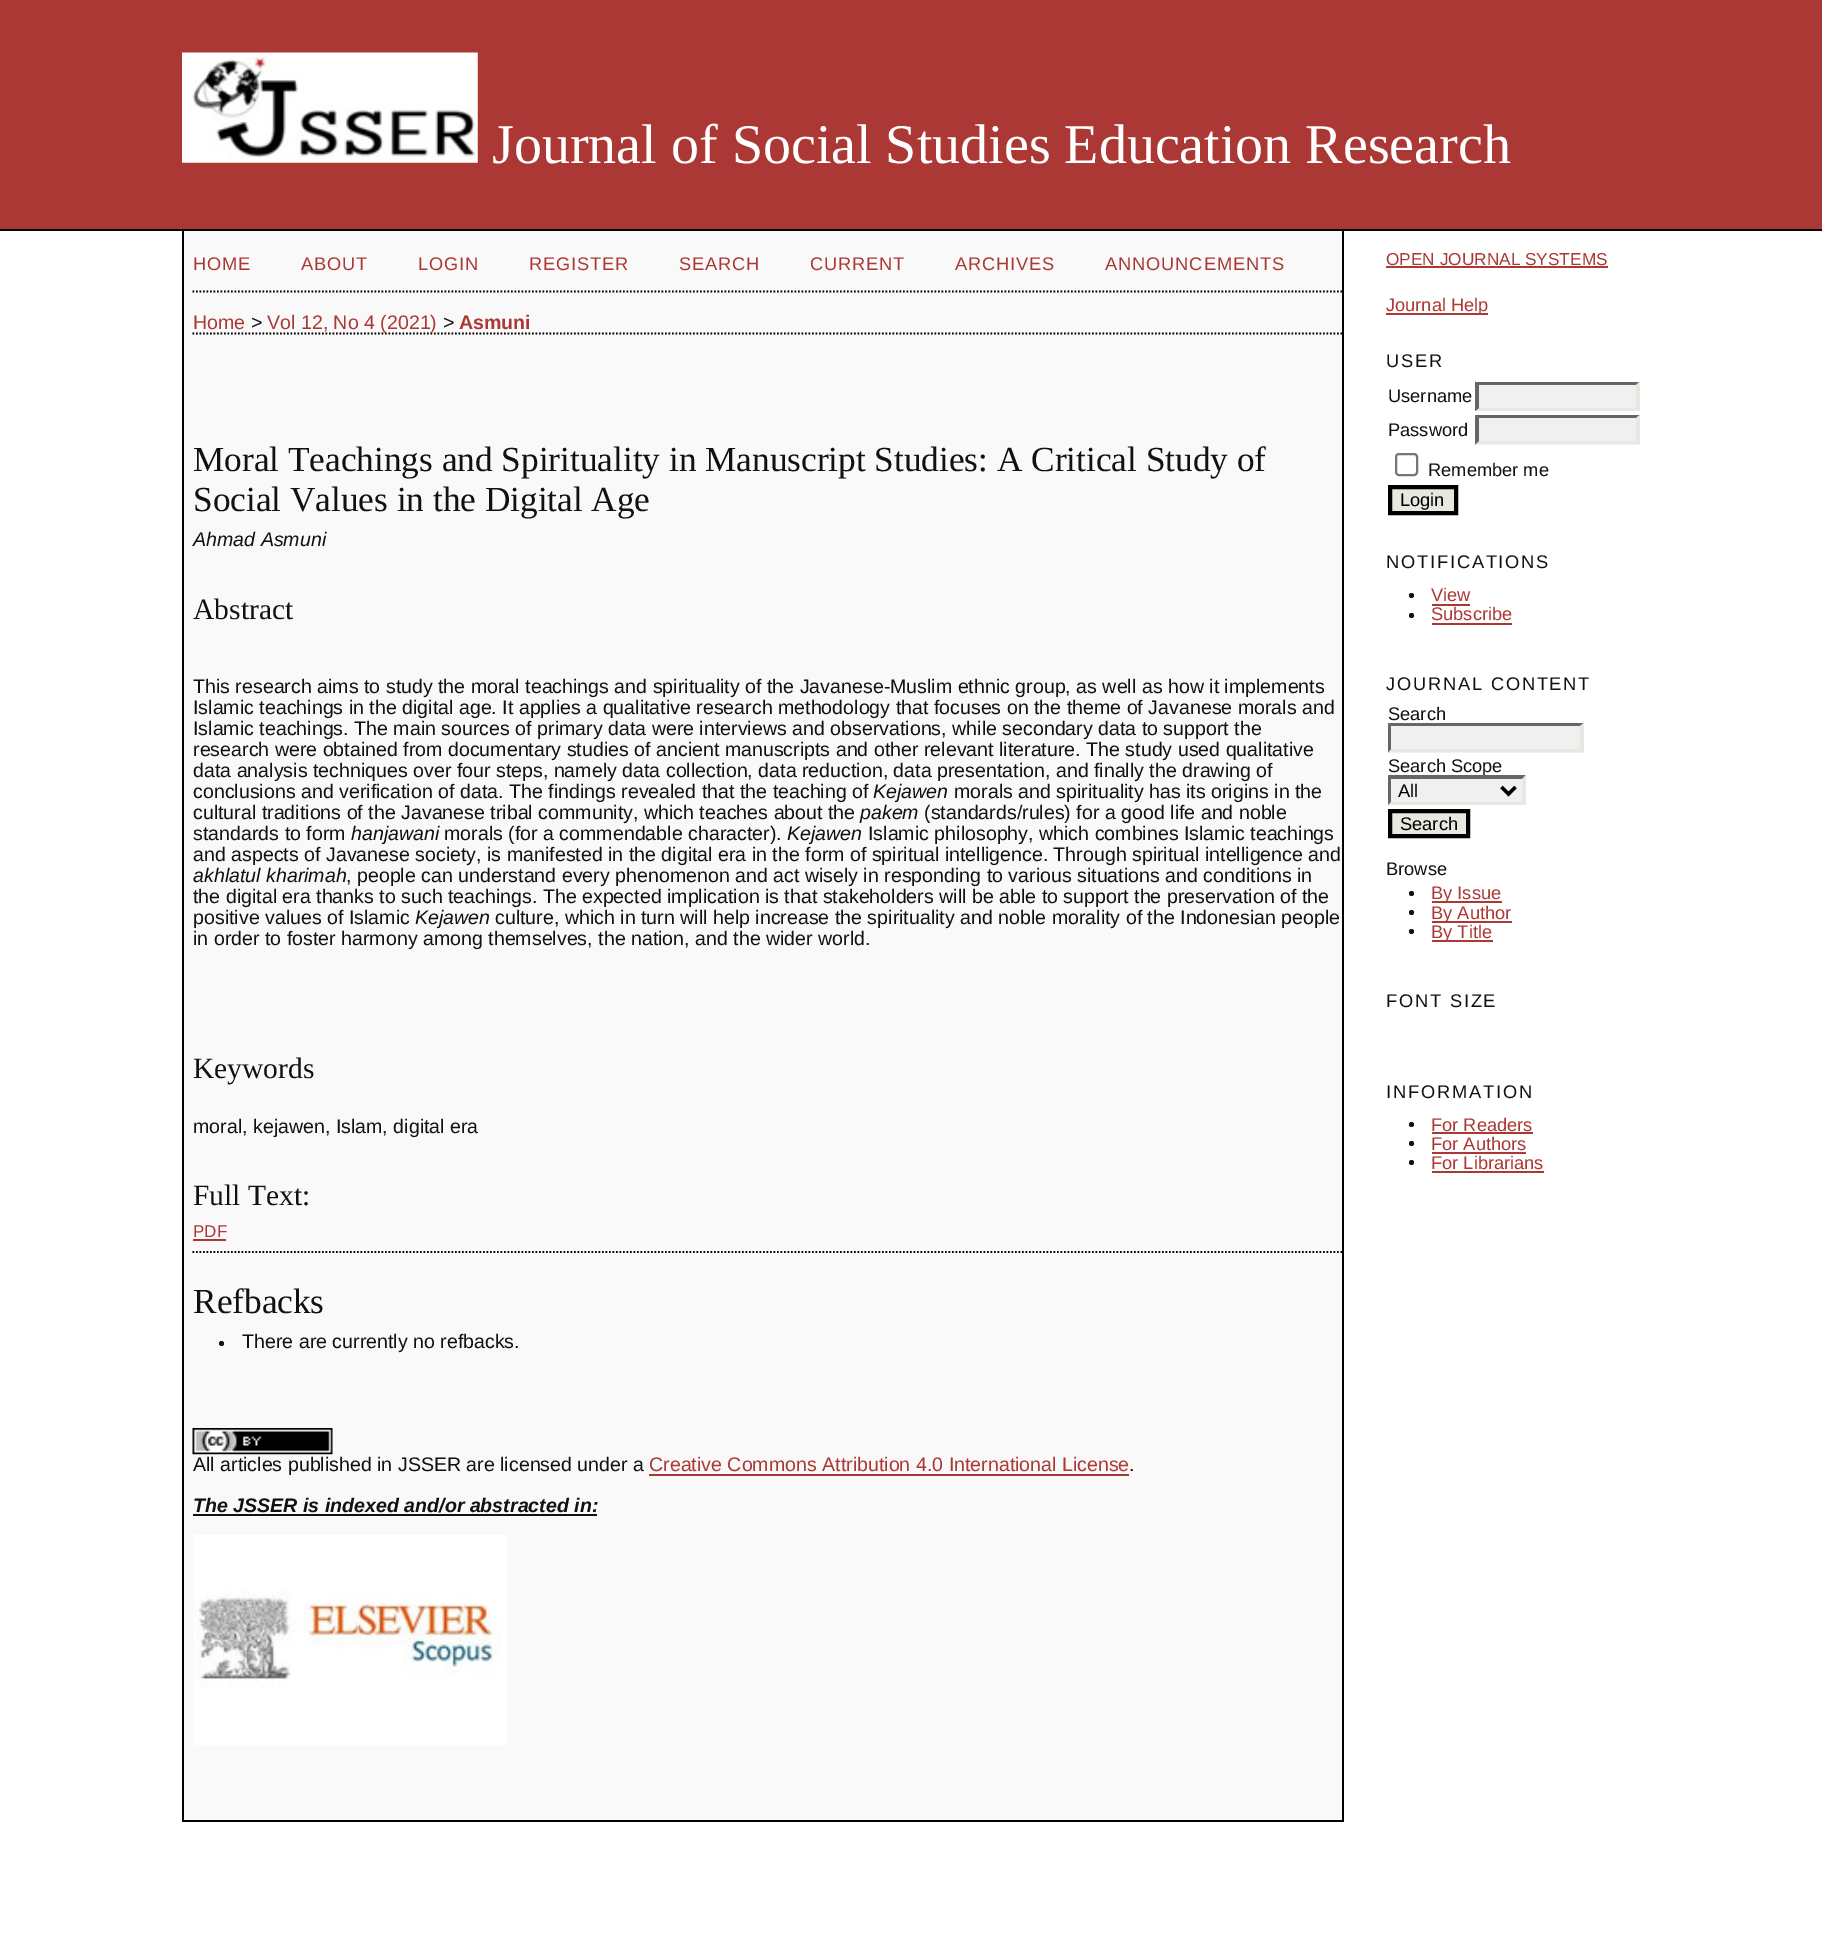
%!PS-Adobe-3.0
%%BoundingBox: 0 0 1822 1960
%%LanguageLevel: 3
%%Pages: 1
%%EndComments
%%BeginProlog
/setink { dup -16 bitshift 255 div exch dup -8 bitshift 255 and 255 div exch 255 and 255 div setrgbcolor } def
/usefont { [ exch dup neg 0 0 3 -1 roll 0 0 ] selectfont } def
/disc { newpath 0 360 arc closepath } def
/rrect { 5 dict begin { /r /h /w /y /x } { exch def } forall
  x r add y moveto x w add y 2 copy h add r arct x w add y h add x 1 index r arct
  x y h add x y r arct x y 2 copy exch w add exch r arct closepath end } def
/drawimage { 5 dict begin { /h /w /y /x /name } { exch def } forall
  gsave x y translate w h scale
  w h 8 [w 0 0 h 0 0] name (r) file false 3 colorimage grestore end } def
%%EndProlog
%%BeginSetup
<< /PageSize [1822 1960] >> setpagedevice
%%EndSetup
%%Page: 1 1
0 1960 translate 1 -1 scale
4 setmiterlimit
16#FFFFFF setink
0 0 1822 1960 rectfill
16#AB3834 setink
0 0 1822 229 rectfill
16#000000 setink
0 229 1822 2 rectfill
(img1.raw) 182 52 296 111 drawimage
/LiberationSerif-Regular 56 usefont
16#FFFFFF setink
492 163 moveto (Journal of Social Studies Education Research) show
[
    [184 231 1158 1589 16#F9F9F9]
    [1342 231 2 1591 16#000000]
    [182 1820 1162 2 16#000000]
    [182 231 2 1591 16#000000]
] { aload pop setink rectfill } forall
1.8 setlinewidth
[1.75 1.75] 0 setdash
192.5 291.5 moveto 1342 291.5 lineto stroke
/LiberationSans-Regular 18.25 usefont
16#AB3834 setink
193 270 moveto 0.9 0 (HOME) ashow
301 270 moveto 0.9 0 (ABOUT) ashow
418 270 moveto 0.9 0 (LOGIN) ashow
529 270 moveto 0.9 0 (REGISTER) ashow
679 270 moveto 0.9 0 (SEARCH) ashow
810 270 moveto 0.9 0 (CURRENT) ashow
955 270 moveto 0.9 0 (ARCHIVES) ashow
1105 270 moveto 0.9 0 (ANNOUNCEMENTS) ashow
16#000000 setink
192.5 333.5 moveto 1342 333.5 lineto stroke
/LiberationSans-Regular 19.6 usefont
16#AB3834 setink
193 329 moveto (Home) show
16#111111 setink
251 329 moveto (>) show
16#AB3834 setink
267 329 moveto (Vol 12, No 4 \(2021\)) show
16#111111 setink
443 329 moveto (>) show
/LiberationSans-Bold 19.6 usefont
16#AB3834 setink
459 329 moveto (Asmuni) show
/LiberationSerif-Regular 35.25 usefont
16#111111 setink
193 471 moveto (Moral Teachings and Spirituality in Manuscript Studies: A Critical Study of) show
193 511 moveto (Social Values in the Digital Age) show
/LiberationSans-Italic 19.6 usefont
193 546 moveto (Ahmad Asmuni) show
/LiberationSerif-Regular 29.5 usefont
193 619 moveto (Abstract) show
/LiberationSans-Regular 19.6 usefont
[
    [(This research aims to study the moral teachings and spirituality of the Javanese-Muslim ethnic group, as well as how it implements) 193 693]
    [(Islamic teachings in the digital age. It applies a qualitative research methodology that focuses on the theme of Javanese morals and) 193 714]
    [(Islamic teachings. The main sources of primary data were interviews and observations, while secondary data to support the) 193 735]
    [(research were obtained from documentary studies of ancient manuscripts and other relevant literature. The study used qualitative) 193 756]
    [(data analysis techniques over four steps, namely data collection, data reduction, data presentation, and finally the drawing of) 193 777]
    [(conclusions and verification of data. The findings revealed that the teaching of) 193 798]
] { aload pop moveto show } forall
/LiberationSans-Italic 19.6 usefont
873 798 moveto (Kejawen) show
/LiberationSans-Regular 19.6 usefont
954 798 moveto (morals and spirituality has its origins in the) show
193 819 moveto (cultural traditions of the Javanese tribal community, which teaches about the) show
/LiberationSans-Italic 19.6 usefont
860 819 moveto (pakem) show
/LiberationSans-Regular 19.6 usefont
924 819 moveto (\(standards/rules\) for a good life and noble) show
193 840 moveto (standards to form) show
/LiberationSans-Italic 19.6 usefont
351 840 moveto (hanjawani) show
/LiberationSans-Regular 19.6 usefont
444 840 moveto (morals \(for a commendable character\).) show
/LiberationSans-Italic 19.6 usefont
787 840 moveto (Kejawen) show
/LiberationSans-Regular 19.6 usefont
868 840 moveto (Islamic philosophy, which combines Islamic teachings) show
193 861 moveto (and aspects of Javanese society, is manifested in the digital era in the form of spiritual intelligence. Through spiritual intelligence and) show
/LiberationSans-Italic 19.6 usefont
193 882 moveto (akhlatul kharimah) show
/LiberationSans-Regular 19.6 usefont
[
    [(, people can understand every phenomenon and act wisely in responding to various situations and conditions in) 346 882]
    [(the digital era thanks to such teachings. The expected implication is that stakeholders will be able to support the preservation of the) 193 903]
    [(positive values of Islamic) 193 924]
] { aload pop moveto show } forall
/LiberationSans-Italic 19.6 usefont
415 924 moveto (Kejawen) show
/LiberationSans-Regular 19.6 usefont
495 924 moveto (culture, which in turn will help increase the spirituality and noble morality of the Indonesian people) show
193 945 moveto (in order to foster harmony among themselves, the nation, and the wider world.) show
/LiberationSerif-Regular 29.5 usefont
193 1078 moveto (Keywords) show
/LiberationSans-Regular 19.6 usefont
193 1133 moveto (moral, kejawen, Islam, digital era) show
/LiberationSerif-Regular 29.5 usefont
193 1205 moveto (Full Text:) show
/LiberationSans-Regular 17 usefont
16#AB3834 setink
193 1237 moveto (PDF) show
193 1239 33 2 rectfill
16#000000 setink
192.5 1252 moveto 1342 1252 lineto stroke
/LiberationSerif-Regular 35.25 usefont
16#111111 setink
193 1313 moveto (Refbacks) show
221.5 1343.5 2.5 disc fill
/LiberationSans-Regular 19.6 usefont
242 1348 moveto (There are currently no refbacks.) show
(img2.raw) 192 1428 141 27 drawimage
193 1471 moveto (All articles published in JSSER are licensed under a) show
16#AB3834 setink
649 1471 moveto (Creative Commons Attribution 4.0 International License) show
649 1474 480 2 rectfill
16#111111 setink
1129 1471 moveto (.) show
/LiberationSans-BoldItalic 19.6 usefont
193 1512 moveto (The JSSER is indexed and/or abstracted in:) show
193 1514 404 2 rectfill
(img3.raw) 193 1535 314 210 drawimage
/LiberationSans-Regular 17.25 usefont
16#AB3834 setink
1386 265 moveto (OPEN JOURNAL SYSTEMS) show
1386 266 222 2 rectfill
1386 313 102 2 rectfill
/LiberationSans-Regular 18.25 usefont
1386 311 moveto (Journal Help) show
16#111111 setink
1386 367 moveto 1.8 0 (USER) ashow
1388 402 moveto (Username) show
16#F0F0F0 setink
1475 382 165 29 rectfill
16#666666 setink
1475 382 moveto 1640 382 lineto 1636 385 lineto 1479 385 lineto closepath fill
16#E8E8E1 setink
1640 381.5 moveto 1640 411 lineto 1636 408 lineto 1636 385 lineto closepath fill
1640 411 moveto 1475 411 lineto 1479 408 lineto 1636 408 lineto closepath fill
16#666666 setink
1475 411 moveto 1475 381.5 lineto 1479 385 lineto 1479 408 lineto closepath fill
16#111111 setink
1388 436 moveto (Password) show
16#F0F0F0 setink
1475 415 165 30 rectfill
16#666666 setink
1475 415 moveto 1640 415 lineto 1636 418 lineto 1479 418 lineto closepath fill
16#E8E8E1 setink
1640 415 moveto 1640 444.5 lineto 1636 441 lineto 1636 418 lineto closepath fill
1640 444 moveto 1475 444 lineto 1479 441 lineto 1636 441 lineto closepath fill
16#666666 setink
1475 444.5 moveto 1475 415 lineto 1479 418 lineto 1479 441 lineto closepath fill
16#767676 setink
2 setlinewidth
[] 0 setdash
1396 454 21 21 3 rrect stroke
16#111111 setink
1428 476 moveto (Remember me) show
16#E8E8E1 setink
1390 487 moveto 1456 487 lineto 1456 513 lineto 1390 513 lineto closepath gsave fill grestore
16#000000 setink
4 setlinewidth
stroke
1400 506 moveto (Login) show
16#111111 setink
1386 568 moveto 1.8 0 (NOTIFICATIONS) ashow
1411.5 595.5 2.5 disc fill
16#AB3834 setink
1431 601 moveto (View) show
1432 604 38 2 rectfill
16#111111 setink
1411.5 615.5 2.5 disc fill
16#AB3834 setink
1431 620 moveto (Subscribe) show
1432 623 80 2 rectfill
16#111111 setink
1386 690 moveto 1.8 0 (JOURNAL CONTENT) ashow
1388 720 moveto (Search) show
16#F0F0F0 setink
1388 723 196 30 rectfill
16#666666 setink
1388 723 moveto 1584 723 lineto 1580 726 lineto 1391 726 lineto closepath fill
16#E8E8E1 setink
1584 723 moveto 1584 752.5 lineto 1580 749 lineto 1580 726 lineto closepath fill
1584 752 moveto 1388 752 lineto 1391 749 lineto 1580 749 lineto closepath fill
16#666666 setink
1388 752.5 moveto 1388 723 lineto 1391 726 lineto 1391 749 lineto closepath fill
16#111111 setink
1388 772 moveto (Search Scope) show
16#F0F0F0 setink
1388 775 138 30 rectfill
16#666666 setink
1388 775 moveto 1526 775 lineto 1522 779 lineto 1391 779 lineto closepath fill
16#E8E8E1 setink
1526 775 moveto 1526 805 lineto 1522.5 801.5 lineto 1522.5 779 lineto closepath fill
1526 805 moveto 1388 805 lineto 1391 802 lineto 1522 802 lineto closepath fill
16#666666 setink
1388 805 moveto 1388 775 lineto 1391 779 lineto 1391 801.5 lineto closepath fill
16#000000 setink
3.5 setlinewidth
1501.5 787 moveto 1508.5 794 lineto 1515.5 787 lineto stroke
1398 797 moveto (All) show
16#E8E8E1 setink
1390 811 moveto 1468 811 lineto 1468 836 lineto 1390 836 lineto closepath gsave fill grestore
16#000000 setink
4 setlinewidth
stroke
1400 830 moveto (Search) show
16#111111 setink
1386 875 moveto (Browse) show
1411.5 893.5 2.5 disc fill
16#AB3834 setink
1432 901 70 2 rectfill
1431 899 moveto (By Issue) show
16#111111 setink
1411.5 912.5 2.5 disc fill
16#AB3834 setink
1432 921 80 2 rectfill
1431 919 moveto (By Author) show
16#111111 setink
1411.5 931.5 2.5 disc fill
16#AB3834 setink
1432 940 61 2 rectfill
1431 938 moveto (By Title) show
16#111111 setink
1386 1007 moveto 1.8 0 (FONT SIZE) ashow
1386 1098 moveto 1.8 0 (INFORMATION) ashow
1411.5 1124.5 2.5 disc fill
16#AB3834 setink
1431 1131 moveto (For Readers) show
1432 1132 101 2 rectfill
16#111111 setink
1411.5 1143.5 2.5 disc fill
16#AB3834 setink
1431 1150 moveto (For Authors) show
1432 1152 94 2 rectfill
16#111111 setink
1411.5 1162.5 2.5 disc fill
16#AB3834 setink
1431 1169 moveto (For Librarians) show
1432 1171 112 2 rectfill
showpage
%%EOF
